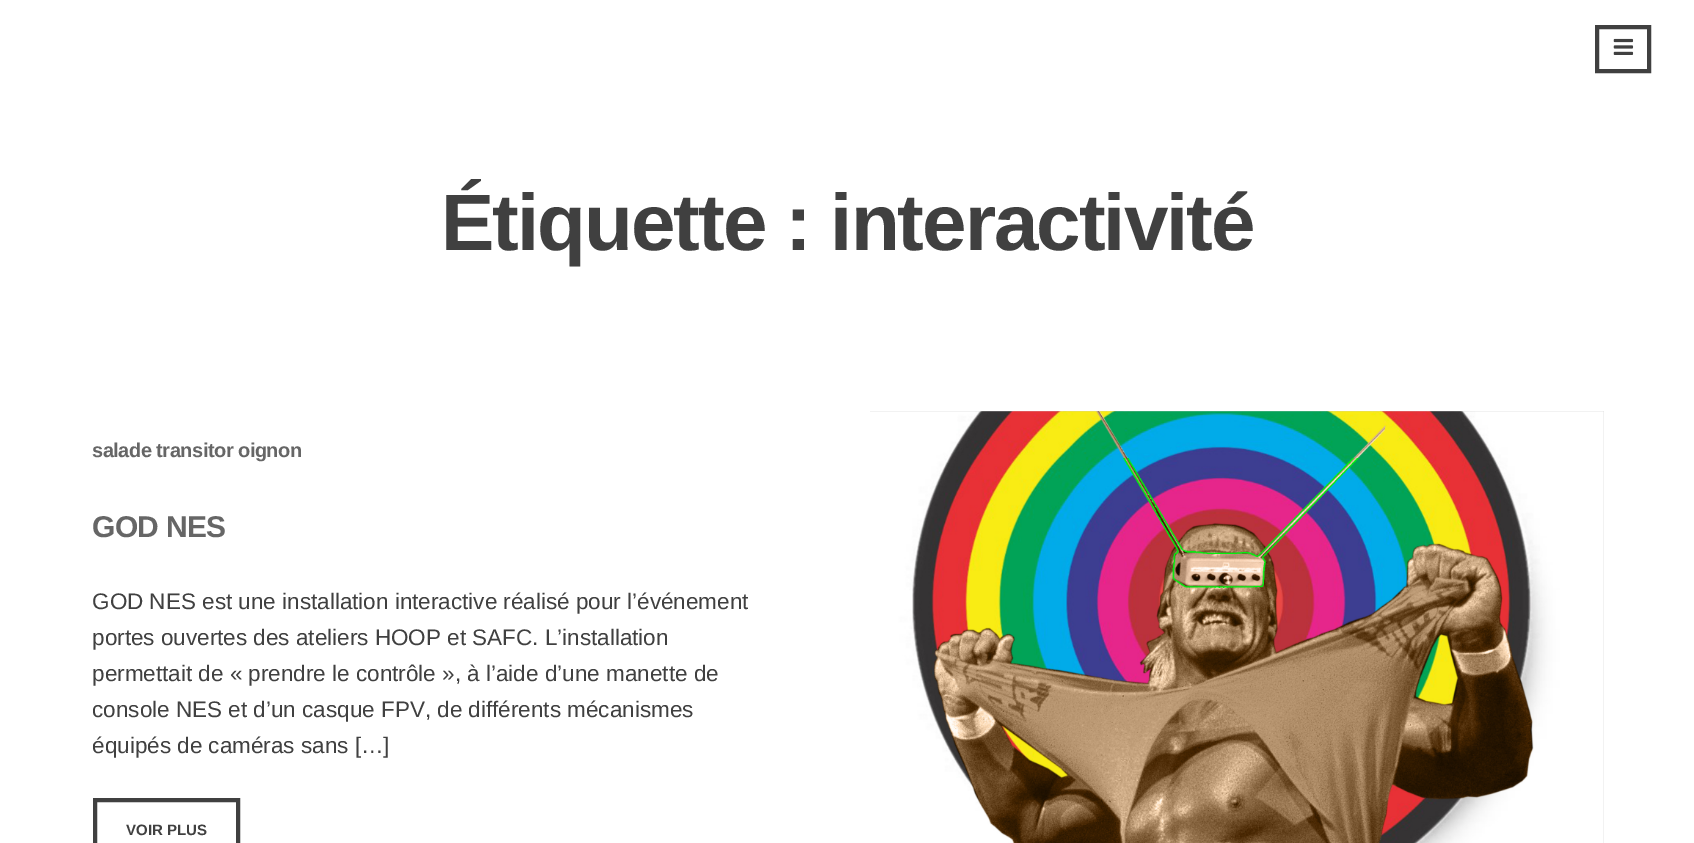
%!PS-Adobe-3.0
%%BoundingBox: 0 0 1694 843
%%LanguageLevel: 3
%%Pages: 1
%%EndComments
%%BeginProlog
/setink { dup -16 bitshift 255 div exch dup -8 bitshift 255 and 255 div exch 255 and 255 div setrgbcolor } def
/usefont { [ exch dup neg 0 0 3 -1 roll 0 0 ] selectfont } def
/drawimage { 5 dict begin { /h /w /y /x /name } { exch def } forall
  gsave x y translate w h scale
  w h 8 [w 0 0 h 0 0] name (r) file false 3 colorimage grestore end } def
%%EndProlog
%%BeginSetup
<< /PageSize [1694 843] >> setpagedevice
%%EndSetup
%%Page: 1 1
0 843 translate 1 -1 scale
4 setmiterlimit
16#FFFFFF setink
0 0 1694 843 rectfill
16#404040 setink
4 setlinewidth
1597 27 52 44 rectstroke
(img1.raw) 1613 38 21 17 drawimage
/LiberationSans-Bold 80 usefont
441 250 moveto -2 0 (Étiquette : interactivité) ashow
/LiberationSans-Bold 20 usefont
16#666666 setink
92 457 moveto -0.5 0 (salade transitor oignon) ashow
/LiberationSans-Bold 30 usefont
92 537 moveto -0.75 0 (GOD NES) ashow
/LiberationSans-Regular 22.5 usefont
16#404040 setink
[
    [(GOD NES est une installation interactive réalisé pour l’événement) 92 609]
    [(portes ouvertes des ateliers HOOP et SAFC. L’installation) 92 645]
    [(permettait de « prendre le contrôle », à l’aide d’une manette de) 92 681]
    [(console NES et d’un casque FPV, de différents mécanismes) 92 717]
    [(équipés de caméras sans […]) 92 753]
] { aload pop moveto show } forall
95 800 143 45 rectstroke
/LiberationSans-Bold 15 usefont
126 835 moveto (VOIR PLUS) show
16#CCCCCC setink
870 411 734 432 rectfill
(img2.raw) 870 411 734 432 drawimage
showpage
%%EOF
